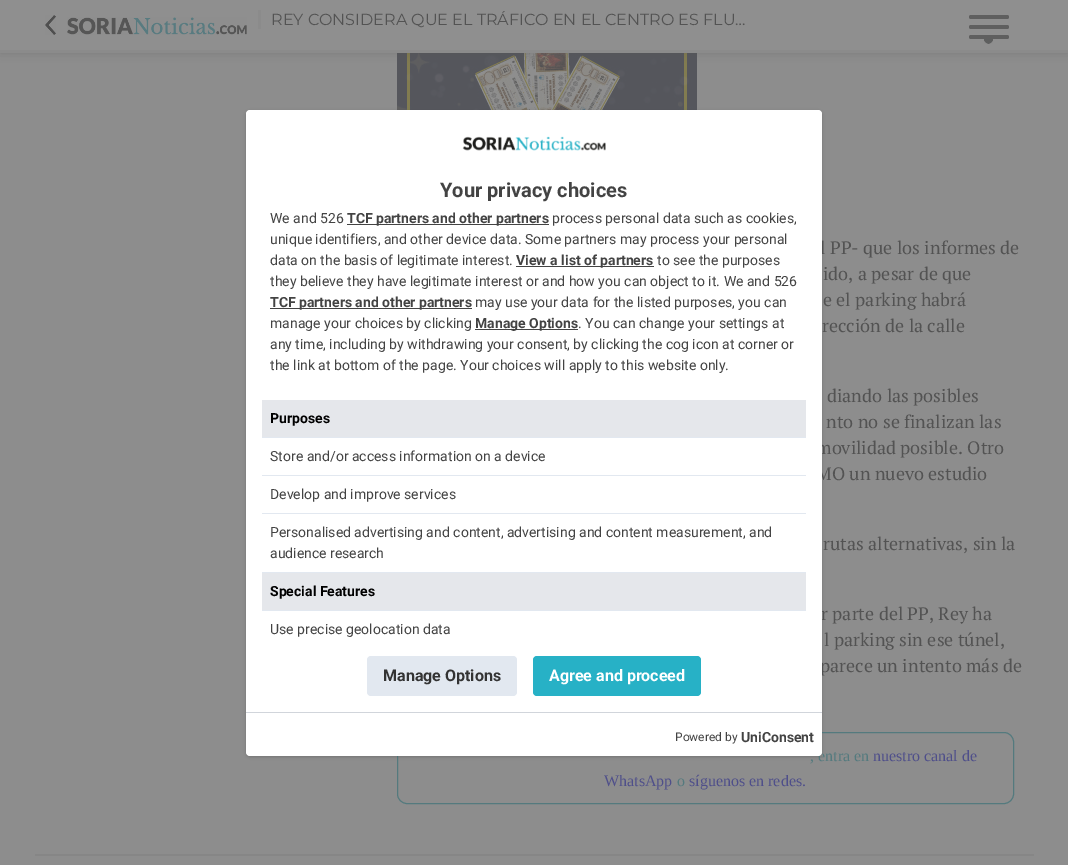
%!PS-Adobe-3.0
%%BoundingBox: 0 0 1068 865
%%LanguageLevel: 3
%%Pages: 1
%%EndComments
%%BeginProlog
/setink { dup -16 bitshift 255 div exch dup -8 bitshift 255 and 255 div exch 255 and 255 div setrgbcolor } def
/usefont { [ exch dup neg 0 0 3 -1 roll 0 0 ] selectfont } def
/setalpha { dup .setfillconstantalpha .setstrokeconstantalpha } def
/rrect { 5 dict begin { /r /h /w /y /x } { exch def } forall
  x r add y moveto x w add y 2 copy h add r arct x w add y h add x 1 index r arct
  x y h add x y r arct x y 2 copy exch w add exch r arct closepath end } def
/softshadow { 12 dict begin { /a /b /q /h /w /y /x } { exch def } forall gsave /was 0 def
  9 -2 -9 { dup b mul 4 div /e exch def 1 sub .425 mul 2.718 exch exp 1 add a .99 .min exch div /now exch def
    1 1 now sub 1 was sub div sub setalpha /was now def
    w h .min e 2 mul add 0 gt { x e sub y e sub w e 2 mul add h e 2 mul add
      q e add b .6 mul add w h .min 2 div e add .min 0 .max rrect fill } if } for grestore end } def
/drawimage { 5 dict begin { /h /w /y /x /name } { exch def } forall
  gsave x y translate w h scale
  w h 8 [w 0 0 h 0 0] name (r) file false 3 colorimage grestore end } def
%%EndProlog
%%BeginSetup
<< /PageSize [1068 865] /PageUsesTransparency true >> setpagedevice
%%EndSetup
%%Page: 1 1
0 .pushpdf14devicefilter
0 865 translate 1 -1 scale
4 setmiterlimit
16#8D8D8D setink
0 0 1068 865 rectfill
(img4.raw) 397 53 300 57 drawimage
16#4F4F4F setink
0 0 1068 53 0 6 0.3 softshadow
16#8F8F8F setink
0 0 1068 50 rectfill
16#8B8B8B setink
0 50 1068 3 rectfill
(img1.raw) 45 15 11 20 drawimage
(img2.raw) 67 17 180 18 drawimage
258 10 3 19 rectfill
/Montserrat-Regular 16 usefont
16#535353 setink
271 25 moveto (REY CONSIDERA QUE EL TRÁFICO EN EL CENTRO ES FLU…) show
16#5F5F5F setink
969 25 40 4 2 rrect fill
969 15 40 4 2 rrect fill
969 35 40 4 2 rrect fill
(img3.raw) 984 39 9 5 drawimage
16#868686 setink
35 854 999 2 rectfill
/PTSerif-Regular 18 usefont
16#535353 setink
[
    [(l PP- que los informes de) 820 254]
    [(ido, a pesar de que) 823 280]
    [(e el parking habrá) 823 306]
    [(rección de la calle) 822 332]
    [(diando las posibles) 827 402]
    [(nto no se finalizan las) 826 428]
    [(movilidad posible. Otro) 816 454]
    [(MO un nuevo estudio) 816 480]
    [(rutas alternativas, sin la) 823 550]
    [(r parte del PP, Rey ha) 821 620]
    [(l parking sin ese túnel,) 824 646]
    [(parece un intento más de) 820 672]
] { aload pop moveto show } forall
16#547A7E setink
397.5 732.5 616 71 9.5 rrect stroke
/LiberationSerif-Regular 16 usefont
810 761 moveto (, entra en) show
16#4F4F8A setink
873 761 moveto (nuestro canal de) show
604 786 moveto (WhatsApp) show
16#547A7E setink
677 786 moveto (o) show
16#4F4F8A setink
689 786 moveto (síguenos en redes.) show
16#000000 setink
247 112 574 644 3 1 0.1 softshadow
246 111 576 646 4 1.5 0.1 softshadow
16#FFFFFF setink
246 110 576 646 4 rrect fill
(img5.raw) 462 136 144 15 drawimage
/Roboto-Bold 20 usefont
16#434343 setink
440 197 moveto (Your privacy choices) show
/Roboto-Regular 14 usefont
270 223 moveto (We and 526) show
347 224 202 1 rectfill
/Roboto-Bold 14 usefont
347 223 moveto (TCF partners and other partners) show
/Roboto-Regular 14 usefont
[
    [(process personal data such as cookies,) 552 223]
    [(unique identifiers, and other device data. Some partners may process your personal) 270 244]
    [(data on the basis of legitimate interest.) 270 265]
] { aload pop moveto show } forall
516 266 138 1 rectfill
/Roboto-Bold 14 usefont
516 265 moveto (View a list of partners) show
/Roboto-Regular 14 usefont
657 265 moveto (to see the purposes) show
270 286 moveto (they believe they have legitimate interest or and how you can object to it. We and 526) show
270 308 202 1 rectfill
/Roboto-Bold 14 usefont
270 307 moveto (TCF partners and other partners) show
/Roboto-Regular 14 usefont
475 307 moveto (may use your data for the listed purposes, you can) show
270 328 moveto (manage your choices by clicking) show
475 329 103 1 rectfill
/Roboto-Bold 14 usefont
475 328 moveto (Manage Options) show
/Roboto-Regular 14 usefont
[
    [(. You can change your settings at) 578 328]
    [(any time, including by withdrawing your consent, by clicking the cog icon at corner or) 270 349]
    [(the link at bottom of the page. Your choices will apply to this website only.) 270 370]
] { aload pop moveto show } forall
16#E5E7EB setink
262 400 544 37 rectfill
16#E2E8F0 setink
262 437 544 1 rectfill
/Roboto-Bold 14 usefont
16#000000 setink
270 423 moveto (Purposes) show
16#E2E8F0 setink
262 475 544 1 rectfill
/Roboto-Regular 14 usefont
16#434343 setink
270 461 moveto (Store and/or access information on a device) show
16#E2E8F0 setink
262 513 544 1 rectfill
16#434343 setink
270 499 moveto (Develop and improve services) show
16#E2E8F0 setink
262 572 544 1 rectfill
16#434343 setink
270 537 moveto (Personalised advertising and content, advertising and content measurement, and) show
270 558 moveto (audience research) show
16#E5E7EB setink
262 573 544 37 rectfill
16#E2E8F0 setink
262 610 544 1 rectfill
/Roboto-Bold 14 usefont
16#000000 setink
270 596 moveto (Special Features) show
/Roboto-Regular 14 usefont
16#434343 setink
270 634 moveto (Use precise geolocation data) show
16#E2E8F0 setink
367 656 150 40 4 rrect fill
/Roboto-Bold 16 usefont
16#333333 setink
383 681 moveto (Manage Options) show
16#27B1C6 setink
533 656 168 40 4 rrect fill
16#FFFFFF setink
549 681 moveto (Agree and proceed) show
16#D1D5DB setink
246 712 576 1 rectfill
/Roboto-Regular 12 usefont
16#434343 setink
675 741 moveto (Powered by) show
/Roboto-Bold 14 usefont
741 742 moveto (UniConsent) show
.poppdf14devicefilter showpage
%%EOF
